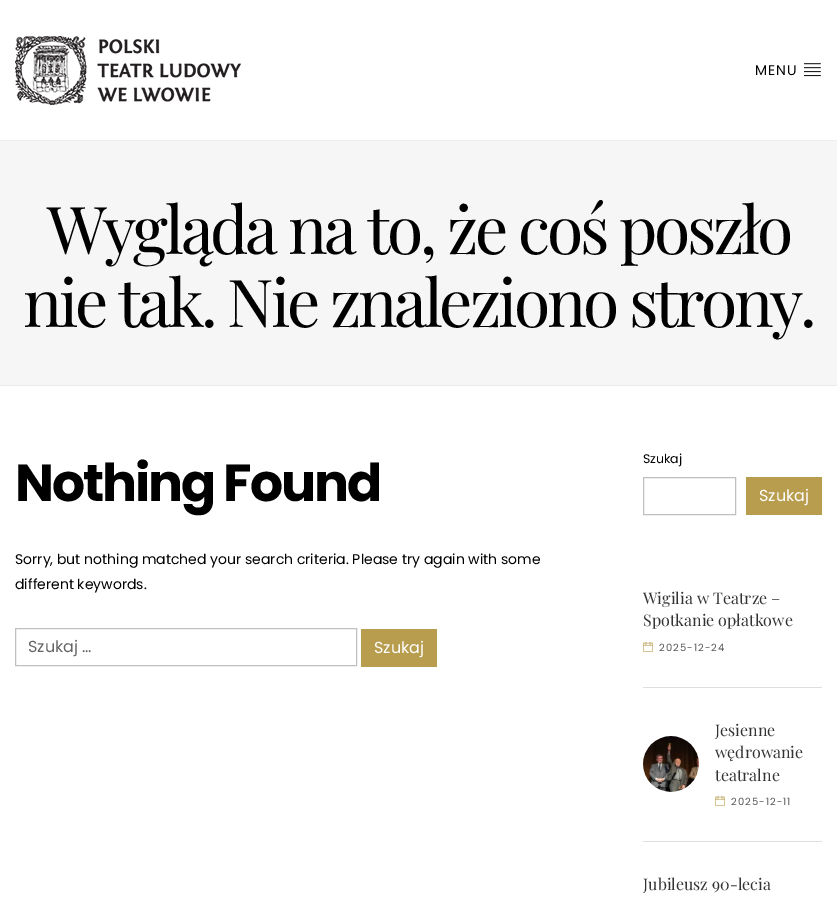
%!PS-Adobe-3.0
%%BoundingBox: 0 0 837 900
%%LanguageLevel: 3
%%Pages: 1
%%EndComments
%%BeginProlog
/setink { dup -16 bitshift 255 div exch dup -8 bitshift 255 and 255 div exch 255 and 255 div setrgbcolor } def
/usefont { [ exch dup neg 0 0 3 -1 roll 0 0 ] selectfont } def
/drawimage { 5 dict begin { /h /w /y /x /name } { exch def } forall
  gsave x y translate w h scale
  w h 8 [w 0 0 h 0 0] name (r) file false 3 colorimage grestore end } def
%%EndProlog
%%BeginSetup
<< /PageSize [837 900] >> setpagedevice
%%EndSetup
%%Page: 1 1
0 900 translate 1 -1 scale
4 setmiterlimit
16#FFFFFF setink
0 0 837 900 rectfill
(img1.raw) 15 36 226 69 drawimage
/Poppins-Regular 14 usefont
16#000000 setink
755 75 moveto 1 0 (MENU) ashow
(img2.raw) 804 63 17 14 drawimage
16#ECECEC setink
0 140 837 1 rectfill
16#F6F6F6 setink
0 141 837 244 rectfill
/PlayfairDisplay-Regular 66 usefont
16#000000 setink
47 254 moveto -3.3 0 (Wygląda na to, że coś poszło) ashow
23 327 moveto -3.3 0 (nie tak. Nie znaleziono strony.) ashow
16#EAEAEA setink
0 385 837 1 rectfill
/Poppins-Bold 52 usefont
16#000000 setink
15 501 moveto -2.1 0 (Nothing Found) ashow
/Poppins-Regular 14 usefont
15 564 moveto (Sorry, but nothing matched your search criteria. Please try again with some) show
15 589 moveto (different keywords.) show
16#BFBFBF setink
15.5 628.5 341 37 rectstroke
/Poppins-Regular 16 usefont
16#666666 setink
28 652 moveto (Szukaj …) show
16#B89D4F setink
361 629 76 38 rectfill
16#FFFFFF setink
374 653 moveto (Szukaj) show
/Poppins-Regular 12.5 usefont
16#000000 setink
643 463 moveto (Szukaj) show
16#BFBFBF setink
643.5 477.5 92 37 rectstroke
16#B89D4F setink
746 477 76 38 rectfill
/Poppins-Regular 16 usefont
16#FFFFFF setink
759 501 moveto (Szukaj) show
/PlayfairDisplay-Regular 16 usefont
16#333333 setink
643 604 moveto (Wigilia w Teatrze –) show
643 626 moveto (Spotkanie opłatkowe) show
(img3.raw) 643 642 10 10 drawimage
/Poppins-Regular 10 usefont
16#595959 setink
659 651 moveto 1 0 (2025-12-24) ashow
16#DFDFDF setink
643 687 179 1 rectfill
(img4.raw) 643 736 56 56 drawimage
/PlayfairDisplay-Regular 16 usefont
16#333333 setink
[
    [(Jesienne) 715 736]
    [(wędrowanie) 715 758]
    [(teatralne) 715 781]
] { aload pop moveto show } forall
(img3.raw) 715 796 10 10 drawimage
/Poppins-Regular 10 usefont
16#595959 setink
731 805 moveto 1 0 (2025-12-11) ashow
16#DFDFDF setink
643 841 179 1 rectfill
/PlayfairDisplay-Regular 16 usefont
16#333333 setink
643 890 moveto (Jubileusz 90-lecia) show
showpage
%%EOF
